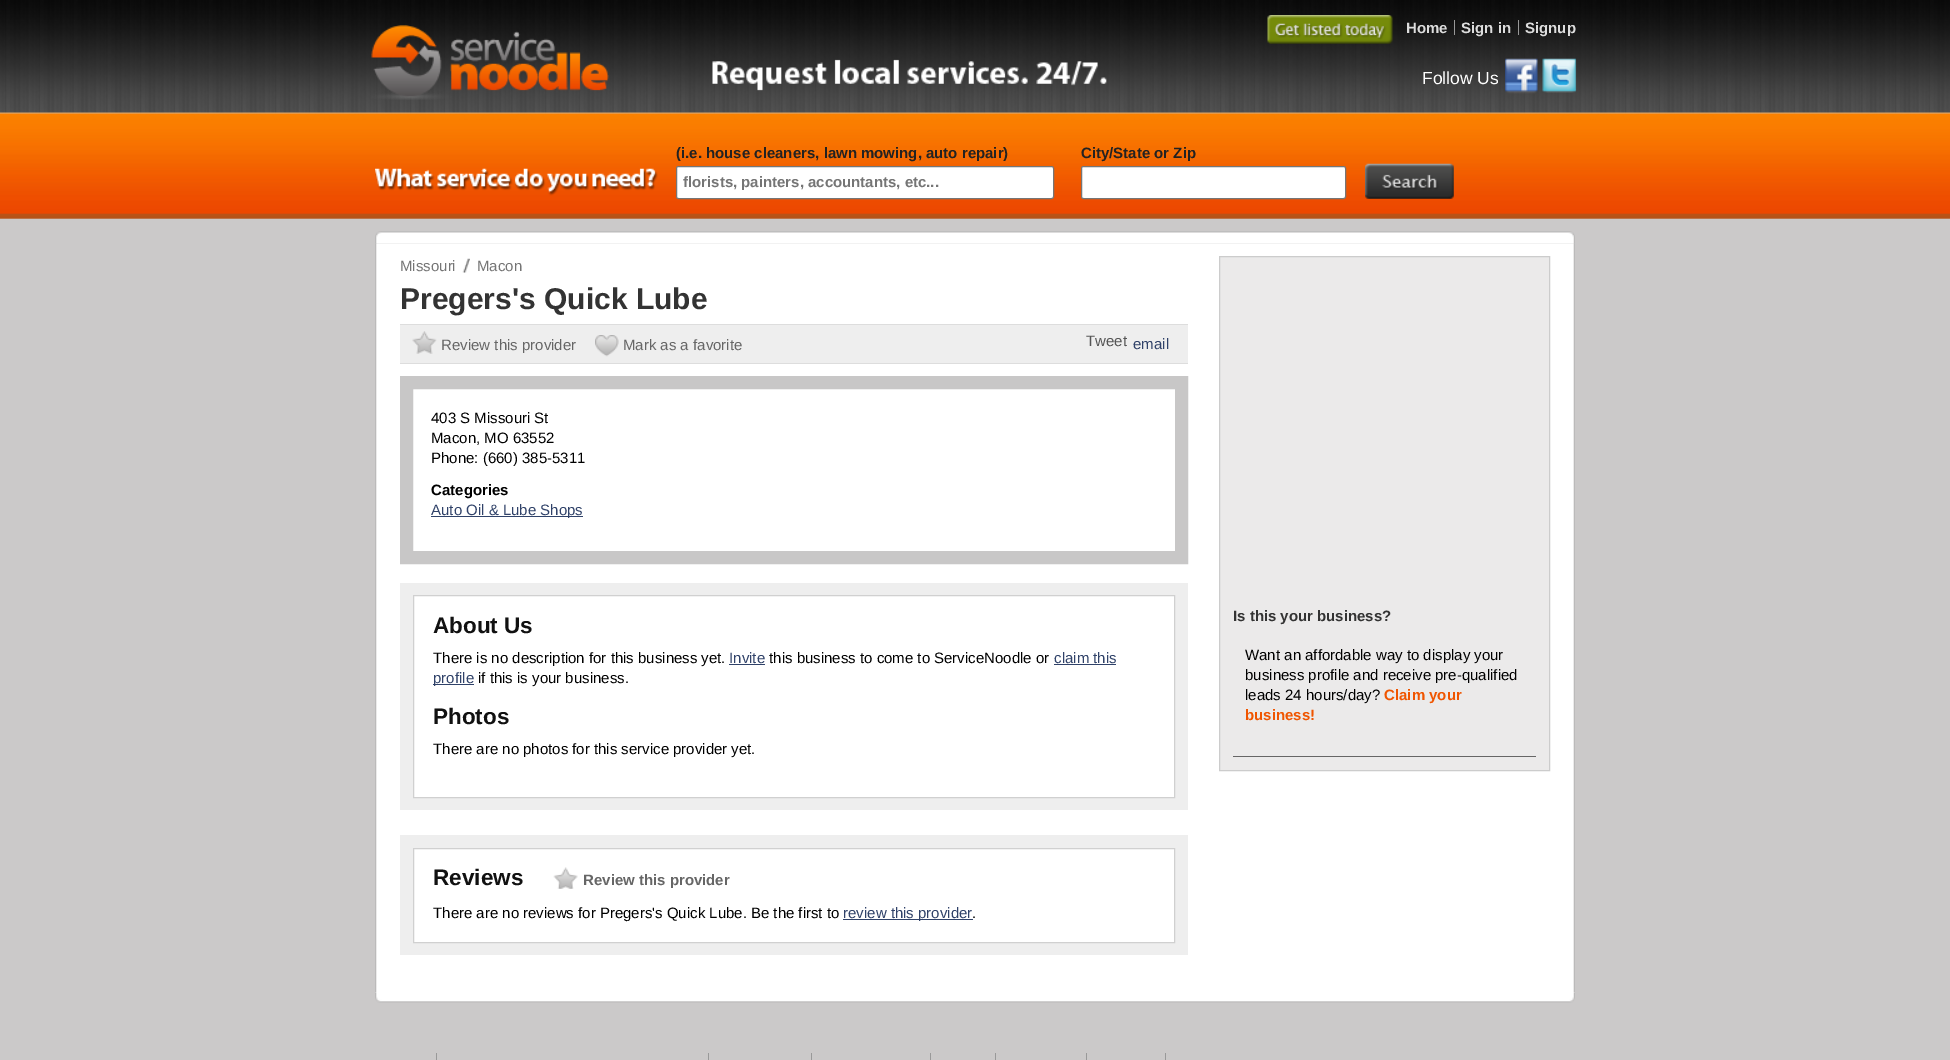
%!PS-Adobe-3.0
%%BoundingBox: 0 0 1950 1060
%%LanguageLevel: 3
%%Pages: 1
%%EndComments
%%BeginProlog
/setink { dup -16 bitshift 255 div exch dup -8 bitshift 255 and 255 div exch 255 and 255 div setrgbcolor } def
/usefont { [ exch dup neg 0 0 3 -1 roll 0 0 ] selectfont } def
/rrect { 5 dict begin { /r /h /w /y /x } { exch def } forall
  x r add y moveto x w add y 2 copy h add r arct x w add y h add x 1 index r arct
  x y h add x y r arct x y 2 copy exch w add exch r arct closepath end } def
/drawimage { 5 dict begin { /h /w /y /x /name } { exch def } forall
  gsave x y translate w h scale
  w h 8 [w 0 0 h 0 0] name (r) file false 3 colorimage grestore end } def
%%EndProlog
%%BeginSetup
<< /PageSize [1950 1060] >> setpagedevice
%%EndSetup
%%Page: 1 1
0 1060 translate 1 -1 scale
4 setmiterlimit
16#CBC9C9 setink
0 0 1950 1060 rectfill
(img1.raw) 0 0 1950 219 drawimage
(img2.raw) 371 25 238 75 drawimage
(img3.raw) 1267 15 126 29 drawimage
16#999999 setink
1454 20 1 15 rectfill
/LiberationSans-Bold 15 usefont
16#DDDDDD setink
1406 33 moveto (Home) show
16#999999 setink
1518 20 1 15 rectfill
16#DDDDDD setink
1461 33 moveto (Sign in) show
1525 33 moveto (Signup) show
(img4.raw) 712 59 395 32 drawimage
/LiberationSans-Regular 17.5 usefont
16#FFFFFF setink
1422 84 moveto (Follow Us) show
(img5.raw) 1505 58 33 36 drawimage
(img6.raw) 1542 58 35 35 drawimage
/LiberationSans-Bold 15 usefont
16#222222 setink
676 158 moveto (\(i.e. house cleaners, lawn mowing, auto repair\)) show
16#FFFFFF setink
676.5 166.5 377 32 2 rrect gsave fill grestore
16#767676 setink
stroke
16#757575 setink
683 187 moveto (florists, painters, accountants, etc...) show
16#222222 setink
1081 158 moveto (City/State or Zip) show
16#FFFFFF setink
1081.5 166.5 264 32 2 rrect gsave fill grestore
16#767676 setink
stroke
(img7.raw) 375 168 283 28 drawimage
(img8.raw) 1365 163 89 36 drawimage
(img9.raw) 375 231 1200 13 drawimage
(img10.raw) 375 244 1200 749 drawimage
(img11.raw) 462 258 8 15 drawimage
/LiberationSans-Regular 15 usefont
16#757575 setink
400 271 moveto (Missouri) show
477 271 moveto (Macon) show
/LiberationSans-Bold 30 usefont
16#333333 setink
400 309 moveto (Pregers's Quick Lube) show
[
    [400 325 788 38 16#EEEEEE]
    [400 324 788 1 16#DDDDDD]
    [400 363 788 1 16#DDDDDD]
] { aload pop setink rectfill } forall
(img12.raw) 412 331 25 23 drawimage
/LiberationSans-Regular 15 usefont
16#666666 setink
441 350 moveto (Review this provider) show
(img13.raw) 595 335 24 22 drawimage
623 350 moveto (Mark as a favorite) show
16#555555 setink
1086 346 moveto (Tweet) show
16#304269 setink
1133 349 moveto (email) show
16#C8C7C7 setink
13 setlinewidth
406.5 382.5 775 175 rectstroke
16#000000 setink
[
    [(403 S Missouri St) 431 423]
    [(Macon, MO 63552) 431 443]
    [(Phone: \(660\) 385-5311) 431 463]
] { aload pop moveto show } forall
/LiberationSans-Bold 15 usefont
431 495 moveto (Categories) show
16#304269 setink
431 516 152 1 rectfill
/LiberationSans-Regular 15 usefont
431 515 moveto (Auto Oil & Lube Shops) show
16#EEEEEE setink
400 583 788 227 rectfill
16#FFFFFF setink
413.5 595.5 moveto 1174.5 595.5 lineto 1174.5 797.5 lineto 413.5 797.5 lineto closepath gsave fill grestore
16#D0D0D0 setink
1 setlinewidth
stroke
/LiberationSans-Bold 22.5 usefont
16#111111 setink
433 633 moveto (About Us) show
/LiberationSans-Regular 15 usefont
16#000000 setink
433 663 moveto (There is no description for this business yet.) show
16#304269 setink
729 663 moveto (Invite) show
729 664 36 1 rectfill
16#000000 setink
769 663 moveto (this business to come to ServiceNoodle or) show
16#304269 setink
1054 663 moveto (claim this) show
1054 664 62 1 rectfill
433 684 41 1 rectfill
433 683 moveto (profile) show
16#000000 setink
478 683 moveto (if this is your business.) show
/LiberationSans-Bold 22.5 usefont
16#111111 setink
433 724 moveto (Photos) show
/LiberationSans-Regular 15 usefont
16#000000 setink
433 754 moveto (There are no photos for this service provider yet.) show
16#EEEEEE setink
400 835 788 120 rectfill
16#FFFFFF setink
413.5 848.5 moveto 1174.5 848.5 lineto 1174.5 942.5 lineto 413.5 942.5 lineto closepath gsave fill grestore
16#D0D0D0 setink
stroke
/LiberationSans-Bold 22.5 usefont
16#111111 setink
433 885 moveto (Reviews) show
(img14.raw) 553 867 25 22 drawimage
/LiberationSans-Bold 15 usefont
16#666666 setink
583 885 moveto (Review this provider) show
/LiberationSans-Regular 15 usefont
16#000000 setink
433 918 moveto (There are no reviews for Pregers's Quick Lube. Be the first to) show
16#304269 setink
843 919 130 1 rectfill
843 918 moveto (review this provider) show
16#000000 setink
972 918 moveto (.) show
16#EBEAEA setink
1219.5 256.5 moveto 1549.5 256.5 lineto 1549.5 770.5 lineto 1219.5 770.5 lineto closepath gsave fill grestore
16#CCCCCC setink
stroke
/LiberationSans-Bold 15 usefont
16#333333 setink
1233 621 moveto (Is this your business?) show
16#666666 setink
1233 756 303 1 rectfill
/LiberationSans-Regular 15 usefont
16#000000 setink
[
    [(Want an affordable way to display your) 1245 660]
    [(business profile and receive pre-qualified) 1245 680]
    [(leads 24 hours/day?) 1245 700]
] { aload pop moveto show } forall
/LiberationSans-Bold 15 usefont
16#F05500 setink
1384 700 moveto (Claim your) show
1245 720 moveto (business!) show
(img15.raw) 375 992 1200 11 drawimage
[
    [436 1053 1 7 16#999999]
    [708 1053 1 7 16#999999]
    [811 1053 1 7 16#999999]
    [930 1053 1 7 16#999999]
    [995 1053 1 7 16#999999]
    [1086 1053 1 7 16#999999]
    [1165 1053 1 7 16#999999]
] { aload pop setink rectfill } forall
showpage
%%EOF
